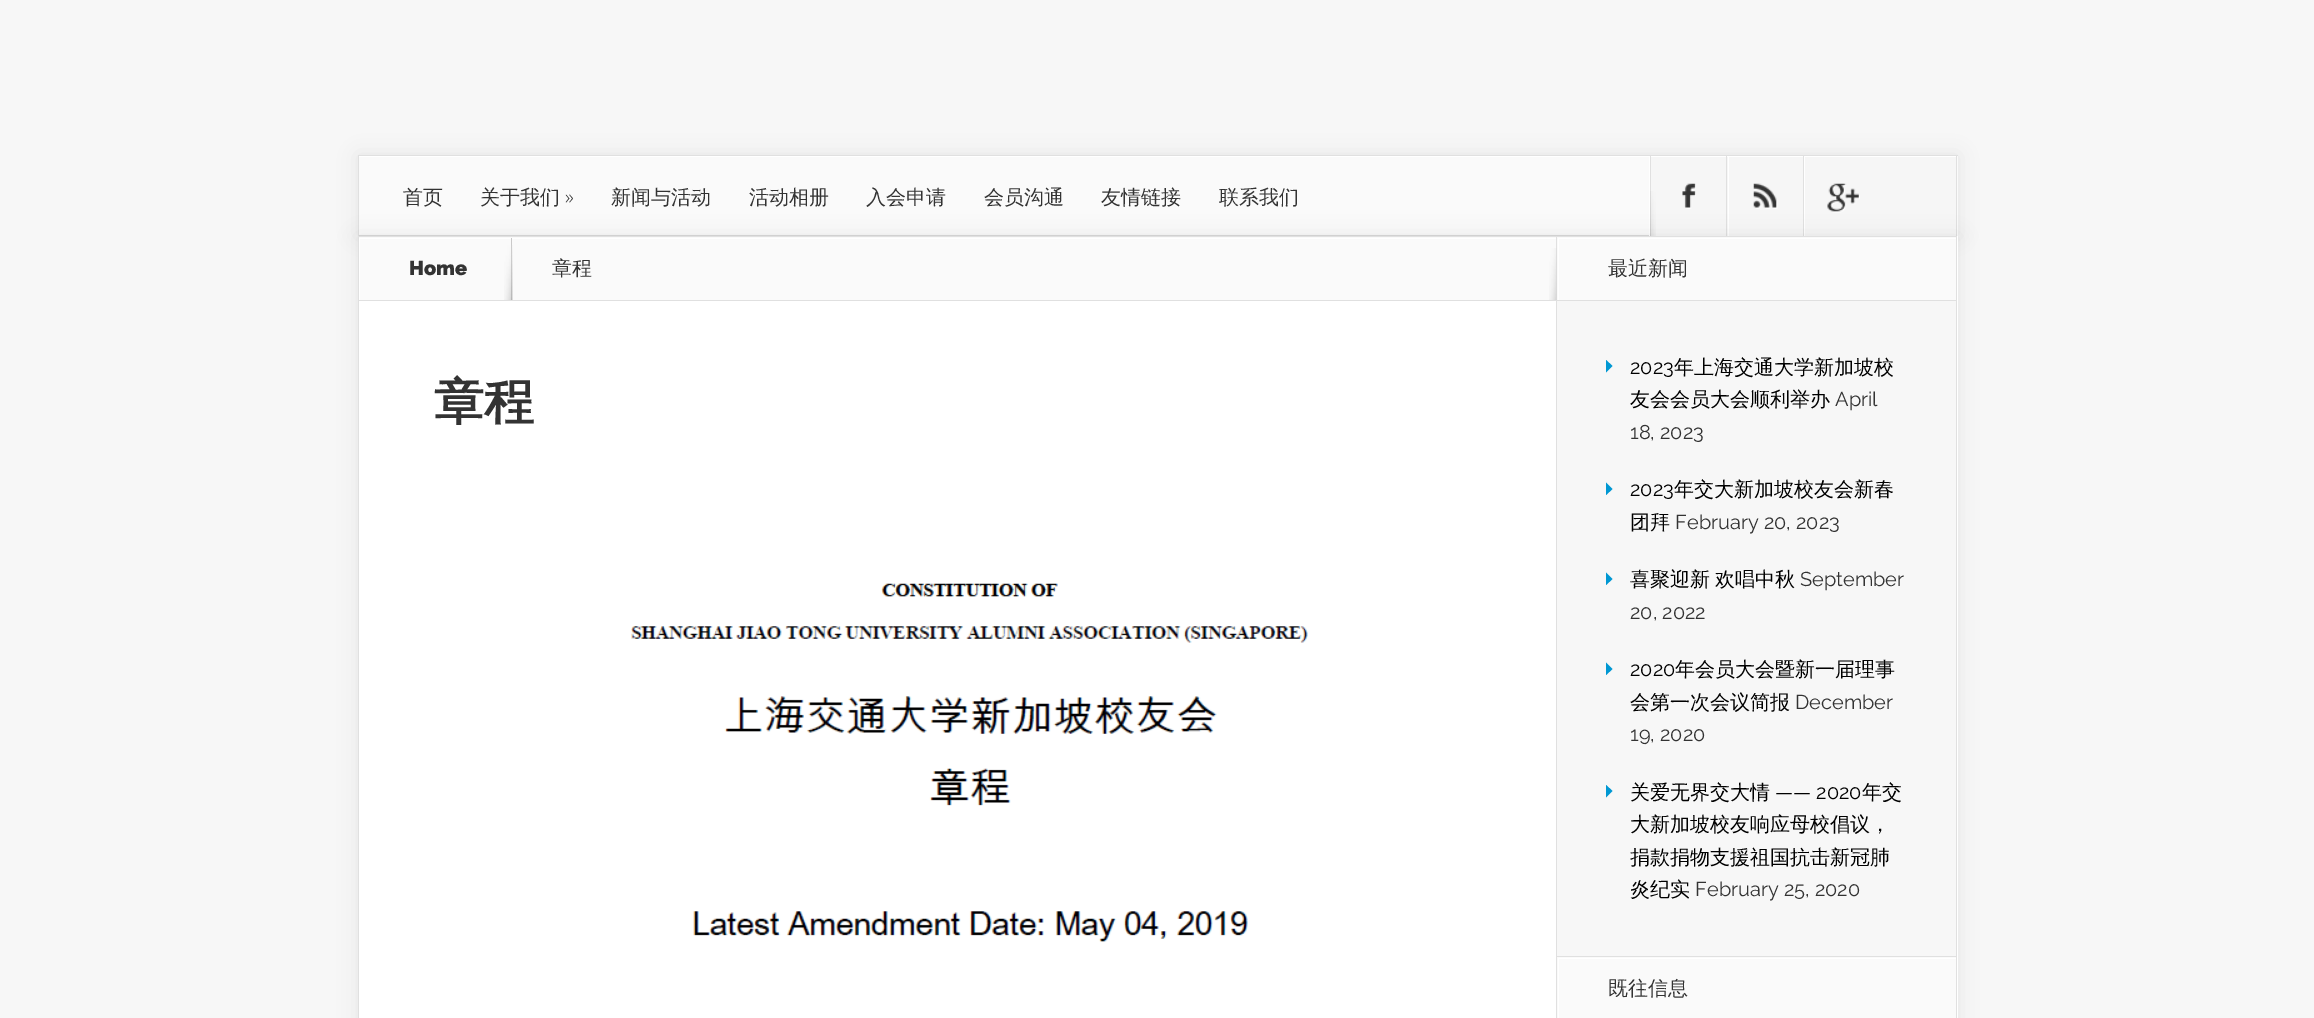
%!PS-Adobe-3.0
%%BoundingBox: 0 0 2314 1018
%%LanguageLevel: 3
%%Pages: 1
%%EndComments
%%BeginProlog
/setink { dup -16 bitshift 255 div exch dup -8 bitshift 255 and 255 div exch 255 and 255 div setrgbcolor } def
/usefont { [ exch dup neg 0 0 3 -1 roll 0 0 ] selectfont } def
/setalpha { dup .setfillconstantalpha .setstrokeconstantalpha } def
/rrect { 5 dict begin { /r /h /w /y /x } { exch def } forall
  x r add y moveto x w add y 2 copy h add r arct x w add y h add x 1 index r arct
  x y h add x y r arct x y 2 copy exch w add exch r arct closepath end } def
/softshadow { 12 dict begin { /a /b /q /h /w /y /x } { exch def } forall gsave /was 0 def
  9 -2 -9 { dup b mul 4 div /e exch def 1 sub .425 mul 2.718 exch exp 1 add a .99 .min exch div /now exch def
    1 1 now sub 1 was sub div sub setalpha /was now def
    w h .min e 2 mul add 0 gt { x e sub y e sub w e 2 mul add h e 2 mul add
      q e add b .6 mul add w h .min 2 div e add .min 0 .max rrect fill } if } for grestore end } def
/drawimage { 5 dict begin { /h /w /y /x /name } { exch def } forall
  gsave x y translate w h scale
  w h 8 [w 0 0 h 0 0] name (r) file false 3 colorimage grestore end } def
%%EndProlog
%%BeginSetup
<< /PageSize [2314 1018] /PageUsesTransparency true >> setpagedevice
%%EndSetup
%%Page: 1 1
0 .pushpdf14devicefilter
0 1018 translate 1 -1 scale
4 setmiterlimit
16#F7F7F7 setink
0 0 2314 1018 rectfill
16#000000 setink
358 155 1600 81 0 9.5 0.07 softshadow
[
    [359 156 1599 80 16#FAFAFA]
    [359 235 1290 1 16#DADADA]
    [359 156 1290 1 16#FFFFFF]
    [358 155 1600 1 16#E0E0E0]
    [1956 155 1 81 16#E0E0E0]
    [358 155 1 81 16#E0E0E0]
] { aload pop setink rectfill } forall
/WenQuanYiZenHei-Medium 20 usefont
16#333333 setink
403 204 moveto (首页) show
480 204 moveto (关于我们) show
/OpenSans-Light 20 usefont
565 204 moveto (») show
/WenQuanYiZenHei-Medium 20 usefont
[
    [(新闻与活动) 611 204]
    [(活动相册) 749 204]
    [(入会申请) 866 204]
    [(会员沟通) 984 204]
    [(友情链接) 1101 204]
    [(联系我们) 1219 204]
] { aload pop moveto show } forall
16#FFFFFF setink
1649 156 moveto 1649 236 lineto 1650 236 lineto 1650 156 lineto 1955 156 lineto closepath fill
[
    [1651 157 305 79 16#F6F6F6]
    [1650 156 306 1 16#FFFFFF]
    [1650 156 1 80 16#E0E0E0]
] { aload pop setink rectfill } forall
(img1.raw) 1682 183 14 26 drawimage
16#FFFFFF setink
1728 156 1 80 rectfill
16#E0E0E0 setink
1726 156 1 80 rectfill
(img2.raw) 1753 183 25 26 drawimage
16#FFFFFF setink
1804 156 1 80 rectfill
16#E0E0E0 setink
1803 156 1 80 rectfill
(img3.raw) 1827 183 33 30 drawimage
(img4.raw) 1650 191 6 45 drawimage
16#000000 setink
358 236 1600 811 0 9.5 0.07 softshadow
[
    [359 236 1599 782 16#FFFFFF]
    [1956 236 1 782 16#E0E0E0]
    [358 236 1 782 16#E0E0E0]
    [359 237 1197 63 16#FAFAFA]
] { aload pop setink rectfill } forall
gsave
359 238 1197 62 rectclip
16#FFFFFF setink
235 114 moveto 1680 114 lineto 1680 424 lineto 235 424 lineto closepath 360 239 moveto 1558 239 lineto 1558 301 lineto 360 301 lineto closepath eofill
grestore
16#E0E0E0 setink
359 236 1597 1 rectfill
359 300 1597 1 rectfill
/Raleway-Black 20 usefont
16#333333 setink
409 275 moveto (Home) show
16#CAC9C9 setink
511 238 1 62 rectfill
(img5.raw) 504 245 9 55 drawimage
/WenQuanYiZenHei-Medium 20 usefont
16#333333 setink
552 275 moveto (章程) show
16#E0E0E0 setink
1556 236 1 65 rectfill
(img6.raw) 1549 248 8 52 drawimage
/WenQuanYiZenHei-Bold 50 usefont
16#333333 setink
434 419 moveto (章程) show
(img7.raw) 631 583 677 359 drawimage
16#F7F7F7 setink
1557 301 399 655 rectfill
16#FAFAFA setink
1557 237 399 63 rectfill
gsave
1558 238 398 62 rectclip
16#FFFFFF setink
1434 114 moveto 2080 114 lineto 2080 424 lineto 1434 424 lineto closepath 1559 239 moveto 1958 239 lineto 1958 301 lineto 1559 301 lineto closepath eofill
grestore
/WenQuanYiZenHei-Medium 20 usefont
16#333333 setink
1608 275 moveto (最近新闻) show
16#0098D3 setink
1606 372.5 moveto 1606 360 lineto 1612.5 366 lineto closepath fill
/Raleway-Regular 20 usefont
16#000000 setink
1630 374 moveto (2023) show
/WenQuanYiZenHei-Medium 20 usefont
1674 374 moveto (年上海交通大学新加坡校) show
1630 406 moveto (友会会员大会顺利举办) show
/Raleway-Regular 20 usefont
16#333333 setink
1835 406 moveto (April) show
1630 439 moveto (18, 2023) show
16#0098D3 setink
1606 495 moveto 1606 482.5 lineto 1612.5 489 lineto closepath fill
16#000000 setink
1630 496 moveto (2023) show
/WenQuanYiZenHei-Medium 20 usefont
1674 496 moveto (年交大新加坡校友会新春) show
1630 529 moveto (团拜) show
/Raleway-Regular 20 usefont
16#333333 setink
1675 529 moveto (February 20, 2023) show
16#0098D3 setink
1606 585 moveto 1606 572.5 lineto 1612.5 579 lineto closepath fill
/WenQuanYiZenHei-Medium 20 usefont
16#000000 setink
1630 586 moveto -1 0 32 (喜聚迎新 欢唱中秋) widthshow
/Raleway-Regular 20 usefont
16#333333 setink
1800 586 moveto (September) show
1630 619 moveto (20, 2022) show
16#0098D3 setink
1606 675 moveto 1606 662.5 lineto 1612.5 669 lineto closepath fill
16#000000 setink
1630 676 moveto (2020) show
/WenQuanYiZenHei-Medium 20 usefont
1675 676 moveto (年会员大会暨新一届理事) show
1630 709 moveto (会第一次会议简报) show
/Raleway-Regular 20 usefont
16#333333 setink
1795 709 moveto (December) show
1630 741 moveto (19, 2020) show
16#0098D3 setink
1606 797.5 moveto 1606 785 lineto 1612.5 791 lineto closepath fill
/WenQuanYiZenHei-Medium 20 usefont
16#000000 setink
1630 799 moveto (关爱无界交大情) show
/Raleway-Regular 20 usefont
1775 799 moveto (—— 2020) show
/WenQuanYiZenHei-Medium 20 usefont
[
    [(年交) 1862 799]
    [(大新加坡校友响应母校倡议，) 1630 831]
    [(捐款捐物支援祖国抗击新冠肺) 1630 864]
    [(炎纪实) 1630 896]
] { aload pop moveto show } forall
/Raleway-Regular 20 usefont
16#333333 setink
1695 896 moveto (February 25, 2020) show
16#FAFAFA setink
1557 957 399 61 rectfill
gsave
1558 958 398 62 rectclip
16#FFFFFF setink
1434 834 moveto 2080 834 lineto 2080 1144 lineto 1434 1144 lineto closepath 1559 959 moveto 1958 959 lineto 1958 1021 lineto 1559 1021 lineto closepath eofill
grestore
16#E0E0E0 setink
1556 956 400 1 rectfill
1556 956 1 62 rectfill
/WenQuanYiZenHei-Medium 20 usefont
16#333333 setink
1608 995 moveto (既往信息) show
16#E0E0E0 setink
1556 301 1 655 rectfill
.poppdf14devicefilter showpage
%%EOF
